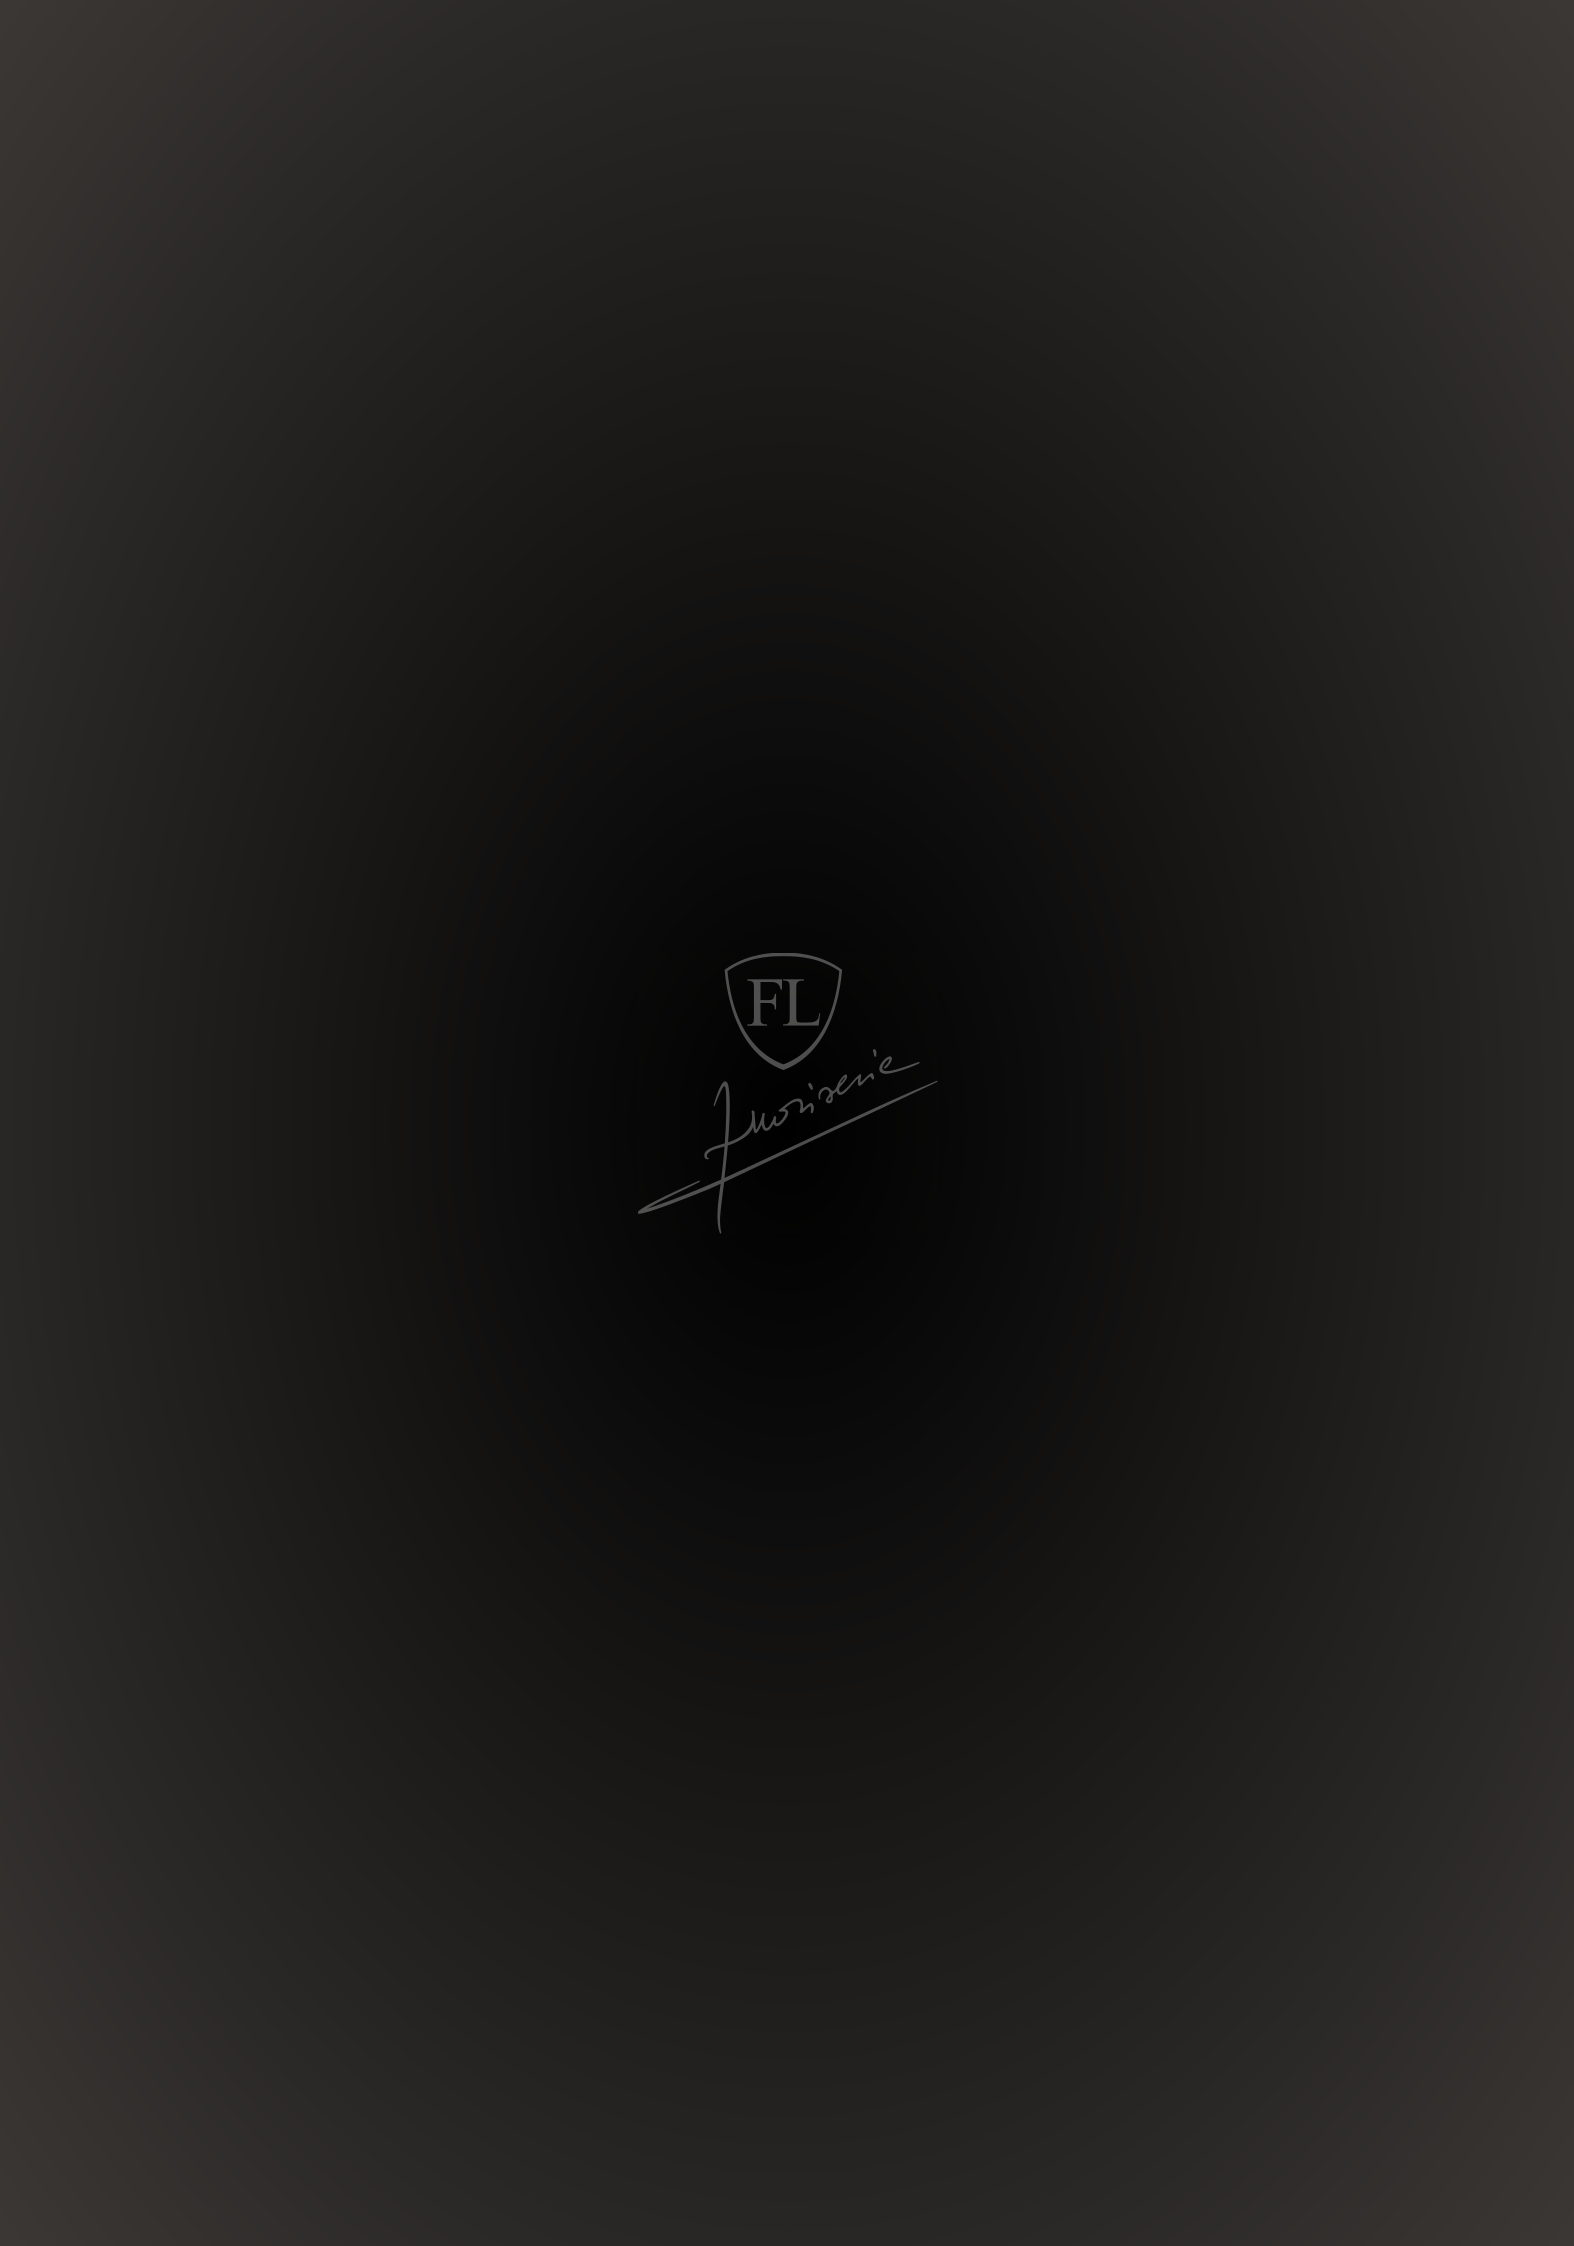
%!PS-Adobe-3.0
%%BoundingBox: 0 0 1574 2246
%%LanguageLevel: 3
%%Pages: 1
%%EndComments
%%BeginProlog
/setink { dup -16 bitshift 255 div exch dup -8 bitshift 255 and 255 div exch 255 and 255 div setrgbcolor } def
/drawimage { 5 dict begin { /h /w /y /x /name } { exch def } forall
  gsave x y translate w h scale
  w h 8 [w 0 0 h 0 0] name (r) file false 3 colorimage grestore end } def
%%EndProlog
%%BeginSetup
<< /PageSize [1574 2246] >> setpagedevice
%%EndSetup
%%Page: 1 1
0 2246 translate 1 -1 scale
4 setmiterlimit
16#FFFFFF setink
0 0 1574 2246 rectfill
gsave 0 0 moveto 1574 0 lineto 1574 2246 lineto 0 2246 lineto closepath clip newpath 788 1124 translate 1114 1589 scale
<< /ShadingType 3 /ColorSpace /DeviceRGB /Coords [0 0 0 0 0 1] /Extend [true true] /Function << /FunctionType 2 /Domain [0 1] /C0 [0 0 0] /C1 [0.231 0.22 0.212] /N 1 >> >> shfill grestore
(img1.raw) 638 953 300 281 drawimage
showpage
%%EOF
